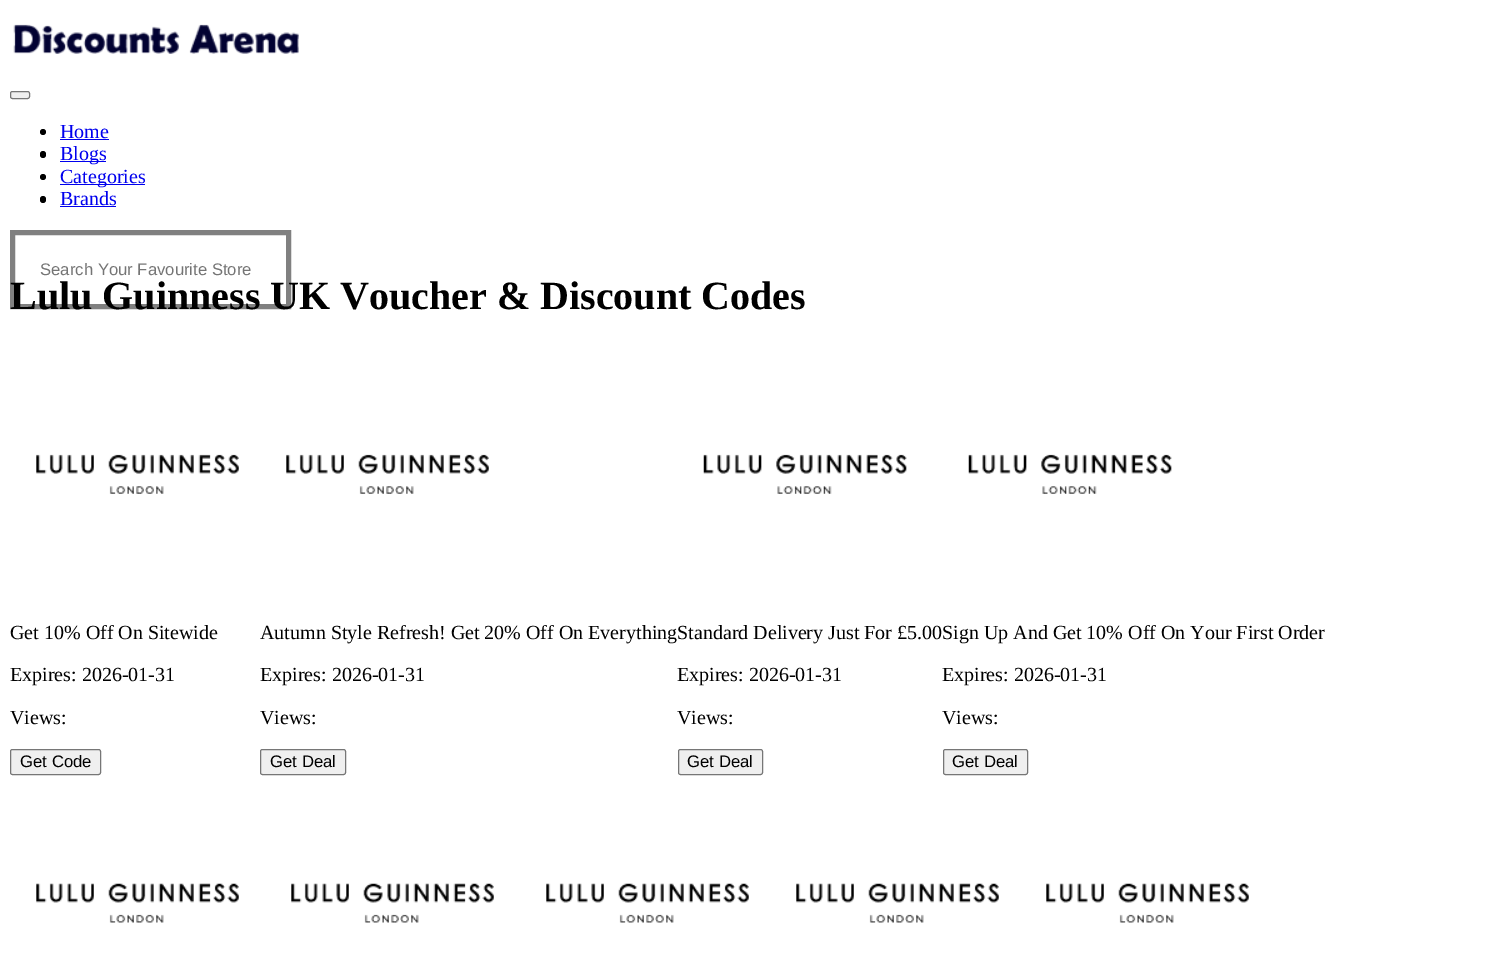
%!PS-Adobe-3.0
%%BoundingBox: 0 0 1493 954
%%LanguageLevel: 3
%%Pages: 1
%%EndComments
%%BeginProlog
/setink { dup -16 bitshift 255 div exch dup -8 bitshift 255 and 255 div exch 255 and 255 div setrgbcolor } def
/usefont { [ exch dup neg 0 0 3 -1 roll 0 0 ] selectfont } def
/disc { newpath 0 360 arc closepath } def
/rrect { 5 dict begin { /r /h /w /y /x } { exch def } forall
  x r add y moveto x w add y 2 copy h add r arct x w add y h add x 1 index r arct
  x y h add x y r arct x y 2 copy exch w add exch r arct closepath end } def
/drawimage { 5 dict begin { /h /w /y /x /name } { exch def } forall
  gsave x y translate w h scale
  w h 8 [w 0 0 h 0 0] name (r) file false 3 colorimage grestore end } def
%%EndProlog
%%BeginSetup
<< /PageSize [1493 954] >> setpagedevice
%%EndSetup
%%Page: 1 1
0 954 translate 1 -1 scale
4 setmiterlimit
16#FFFFFF setink
0 0 1493 954 rectfill
(img1.raw) 13 24 286 30 drawimage
16#EFEFEF setink
10.5 91.5 19 7 2 rrect gsave fill grestore
16#767676 setink
stroke
16#000000 setink
43 132 3 disc fill
/LiberationSerif-Regular 20 usefont
16#0000EE setink
60 138 moveto (Home) show
60 139 49 1 rectfill
16#000000 setink
40 151 6 7 3 rrect fill
16#0000EE setink
60 161 46 1 rectfill
60 160 moveto (Blogs) show
16#000000 setink
43 177 3 disc fill
16#0000EE setink
60 184 85 1 rectfill
60 183 moveto (Categories) show
16#000000 setink
40 196 6 7 3 rrect fill
16#0000EE setink
60 205 moveto (Brands) show
60 206 56 1 rectfill
16#808080 setink
5 setlinewidth
12.5 232.5 276 74 rectstroke
/LiberationSans-Regular 16.7 usefont
16#757575 setink
40 275 moveto (Search Your Favourite Store) show
/LiberationSerif-Bold 40 usefont
16#000000 setink
10 309 moveto (Lulu Guinness UK Voucher & Discount Codes) show
(img2.raw) 36 454 203 40 drawimage
/LiberationSerif-Regular 20 usefont
[
    [(Get 10% Off On Sitewide) 10 639]
    [(Expires: 2026-01-31) 10 681]
    [(Views:) 10 724]
] { aload pop moveto show } forall
16#EFEFEF setink
10.5 749.5 90 25 2 rrect gsave fill grestore
16#767676 setink
1 setlinewidth
stroke
/LiberationSans-Regular 16.7 usefont
16#000000 setink
20 767 moveto (Get Code) show
(img2.raw) 286 454 203 40 drawimage
/LiberationSerif-Regular 20 usefont
[
    [(Autumn Style Refresh! Get 20% Off On EverythingStandard Delivery Just For £5.00Sign Up And Get 10% Off On Your First Order) 260 639]
    [(Expires: 2026-01-31) 260 681]
    [(Views:) 260 724]
] { aload pop moveto show } forall
16#EFEFEF setink
260.5 749.5 85 25 2 rrect gsave fill grestore
16#767676 setink
stroke
/LiberationSans-Regular 16.7 usefont
16#000000 setink
270 767 moveto (Get Deal) show
(img3.raw) 703 454 204 40 drawimage
/LiberationSerif-Regular 20 usefont
677 681 moveto (Expires: 2026-01-31) show
677 724 moveto (Views:) show
16#EFEFEF setink
678.5 749.5 84 25 2 rrect gsave fill grestore
16#767676 setink
stroke
/LiberationSans-Regular 16.7 usefont
16#000000 setink
687 767 moveto (Get Deal) show
(img4.raw) 968 454 204 40 drawimage
/LiberationSerif-Regular 20 usefont
942 681 moveto (Expires: 2026-01-31) show
942 724 moveto (Views:) show
16#EFEFEF setink
943.5 749.5 84 25 2 rrect gsave fill grestore
16#767676 setink
stroke
/LiberationSans-Regular 16.7 usefont
16#000000 setink
952 767 moveto (Get Deal) show
(img5.raw) 36 883 203 40 drawimage
(img5.raw) 291 883 203 40 drawimage
(img5.raw) 546 883 203 40 drawimage
(img5.raw) 796 883 203 40 drawimage
(img5.raw) 1046 883 203 40 drawimage
showpage
%%EOF
